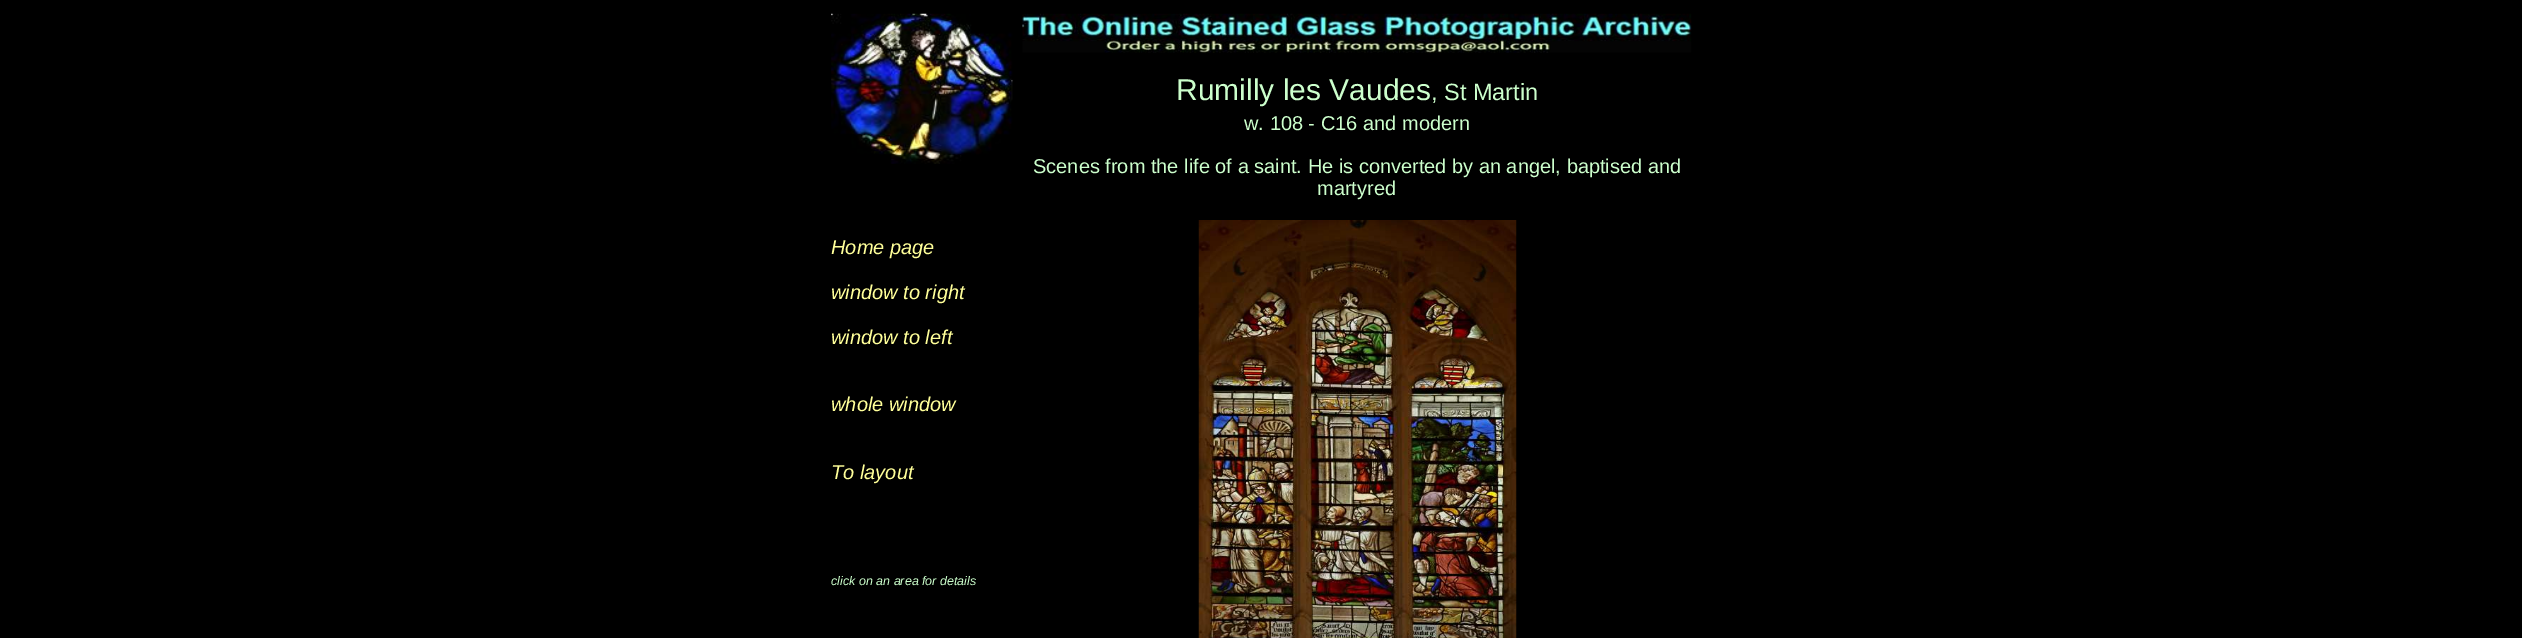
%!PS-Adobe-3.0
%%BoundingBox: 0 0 2522 638
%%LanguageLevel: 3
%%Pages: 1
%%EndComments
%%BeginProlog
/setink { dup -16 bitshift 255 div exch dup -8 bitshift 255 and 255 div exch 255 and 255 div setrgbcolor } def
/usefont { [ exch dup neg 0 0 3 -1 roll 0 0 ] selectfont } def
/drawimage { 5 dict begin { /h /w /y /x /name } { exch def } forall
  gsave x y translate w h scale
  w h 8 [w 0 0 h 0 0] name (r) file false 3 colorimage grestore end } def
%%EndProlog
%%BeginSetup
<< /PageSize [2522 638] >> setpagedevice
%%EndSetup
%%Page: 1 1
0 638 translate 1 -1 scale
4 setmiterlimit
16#000000 setink
0 0 2522 638 rectfill
(img1.raw) 1022 13 670 40 drawimage
/LiberationSans-Regular 30 usefont
16#CCFFCC setink
1176 100 moveto (Rumilly les Vaudes) show
/LiberationSans-Regular 23.5 usefont
1431 100 moveto (, St Martin) show
(img2.raw) 831 13 182 151 drawimage
/LiberationSans-Italic 20 usefont
16#FFFF99 setink
[
    [(Home page) 831 254]
    [(window to right) 831 299]
    [(window to left) 831 344]
    [(whole window) 831 411]
    [(To layout) 831 479]
] { aload pop moveto show } forall
/LiberationSans-Italic 12.5 usefont
16#CCFFCC setink
831 585 moveto (click on an area for details) show
/LiberationSans-Regular 20 usefont
[
    [(w. 108 - C16 and modern) 1244 130]
    [(Scenes from the life of a saint. He is converted by an angel, baptised and) 1033 173]
    [(martyred) 1317 195]
] { aload pop moveto show } forall
(img3.raw) 1198 220 319 418 drawimage
showpage
%%EOF
